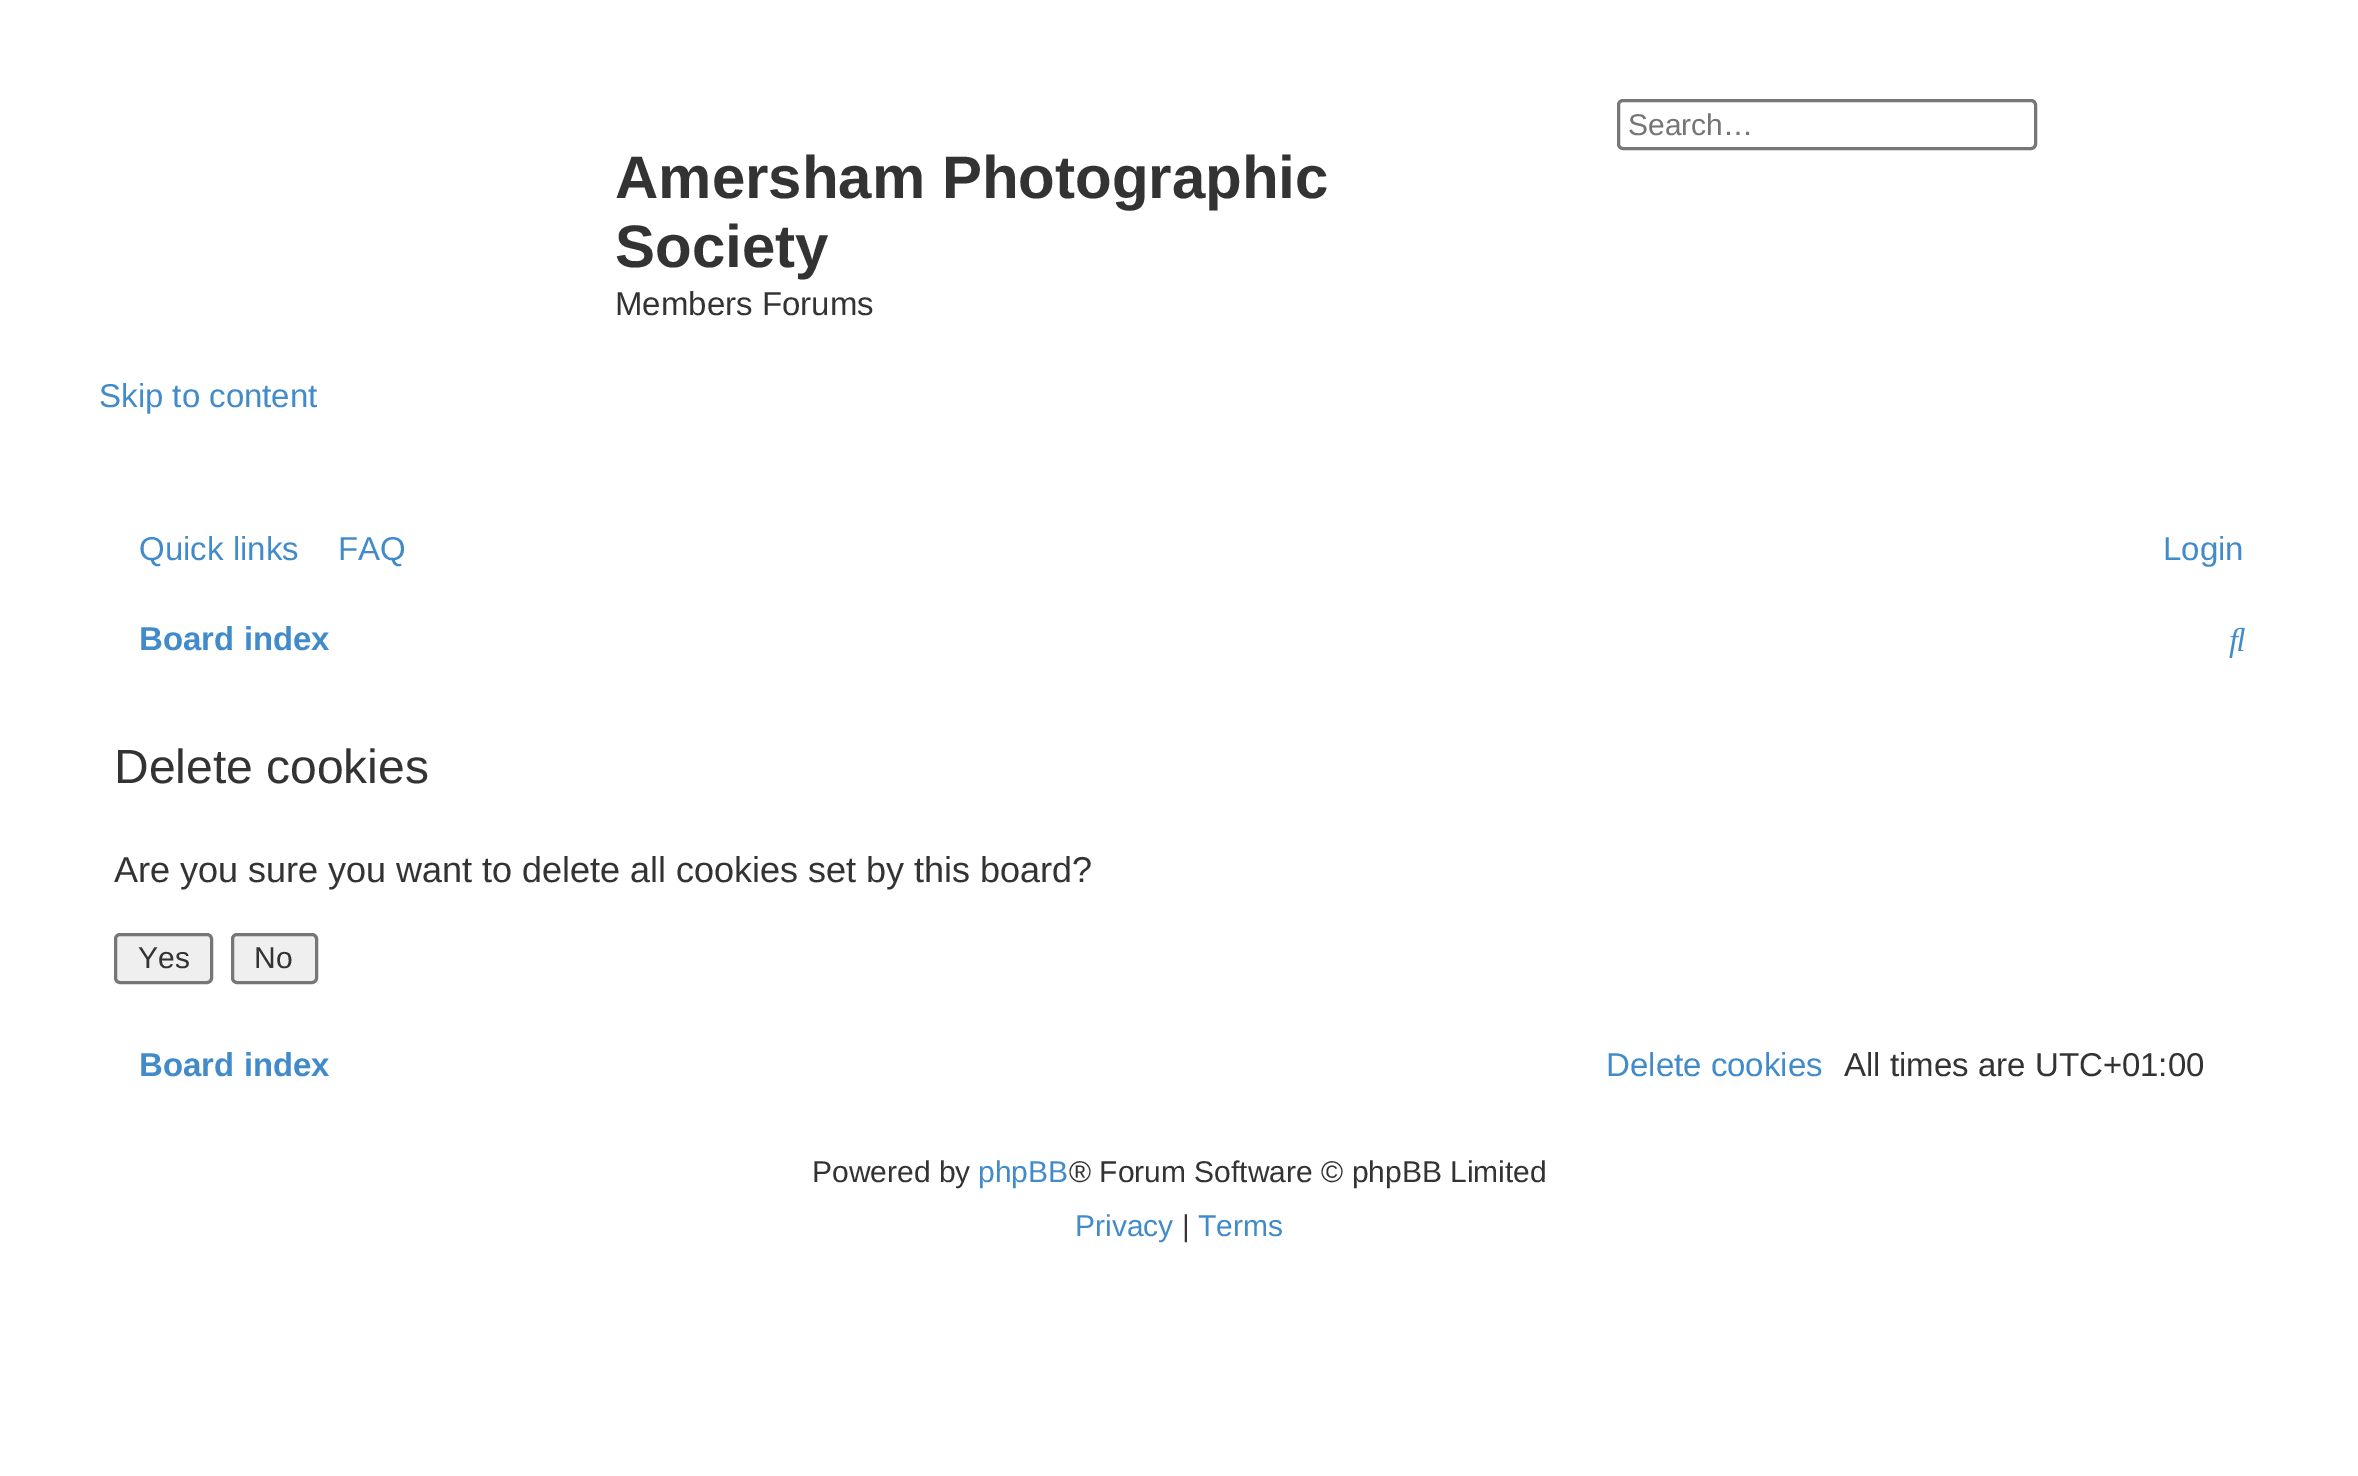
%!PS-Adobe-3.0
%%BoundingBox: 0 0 2358 1476
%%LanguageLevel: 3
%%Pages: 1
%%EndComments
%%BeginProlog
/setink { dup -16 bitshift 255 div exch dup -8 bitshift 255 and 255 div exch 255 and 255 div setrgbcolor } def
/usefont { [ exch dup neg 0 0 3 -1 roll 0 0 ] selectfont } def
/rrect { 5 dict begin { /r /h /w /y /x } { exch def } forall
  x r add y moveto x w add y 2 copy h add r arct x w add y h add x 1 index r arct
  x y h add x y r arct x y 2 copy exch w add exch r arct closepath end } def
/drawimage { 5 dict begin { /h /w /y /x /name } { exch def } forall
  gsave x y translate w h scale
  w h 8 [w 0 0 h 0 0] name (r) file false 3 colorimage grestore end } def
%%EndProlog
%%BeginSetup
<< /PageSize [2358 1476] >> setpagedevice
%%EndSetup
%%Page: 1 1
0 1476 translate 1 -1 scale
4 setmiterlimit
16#FFFFFF setink
0 0 2358 1476 rectfill
16#767676 setink
3 setlinewidth
1618.5 100.5 417 48 4.5 rrect stroke
/LiberationSans-Regular 30 usefont
16#757575 setink
1628 135 moveto (Search…) show
/LiberationSans-Bold 60 usefont
16#333333 setink
615 198 moveto (Amersham Photographic) show
615 267 moveto (Society) show
/LiberationSans-Regular 33 usefont
615 315 moveto (Members Forums) show
16#428BCA setink
[
    [(Skip to content) 99 407]
    [(Quick links) 139 560]
    [(FAQ) 338 560]
    [(Login) 2163 560]
] { aload pop moveto show } forall
/LiberationSans-Bold 33 usefont
139 650 moveto (Board index) show
(img1.raw) 2229 627 16 31 drawimage
/LiberationSans-Regular 48 usefont
16#333333 setink
114 783 moveto (Delete cookies) show
/LiberationSans-Regular 36 usefont
114 882 moveto (Are you sure you want to delete all cookies set by this board?) show
16#EFEFEF setink
115.5 934.5 96 48 4.5 rrect gsave fill grestore
16#767676 setink
stroke
/LiberationSans-Regular 30 usefont
16#333333 setink
138 968 moveto (Yes) show
16#EFEFEF setink
232.5 934.5 84 48 4.5 rrect gsave fill grestore
16#767676 setink
stroke
16#333333 setink
254 968 moveto (No) show
/LiberationSans-Bold 33 usefont
16#428BCA setink
139 1076 moveto (Board index) show
/LiberationSans-Regular 33 usefont
1606 1076 moveto (Delete cookies) show
16#333333 setink
1844 1076 moveto (All times are UTC+01:00) show
/LiberationSans-Regular 30 usefont
812 1182 moveto (Powered by) show
16#428BCA setink
978 1182 moveto (phpBB) show
16#333333 setink
1069 1182 moveto (® Forum Software © phpBB Limited) show
16#428BCA setink
1075 1236 moveto (Privacy) show
16#333333 setink
1182 1236 moveto (|) show
16#428BCA setink
1198 1236 moveto (Terms) show
showpage
%%EOF
